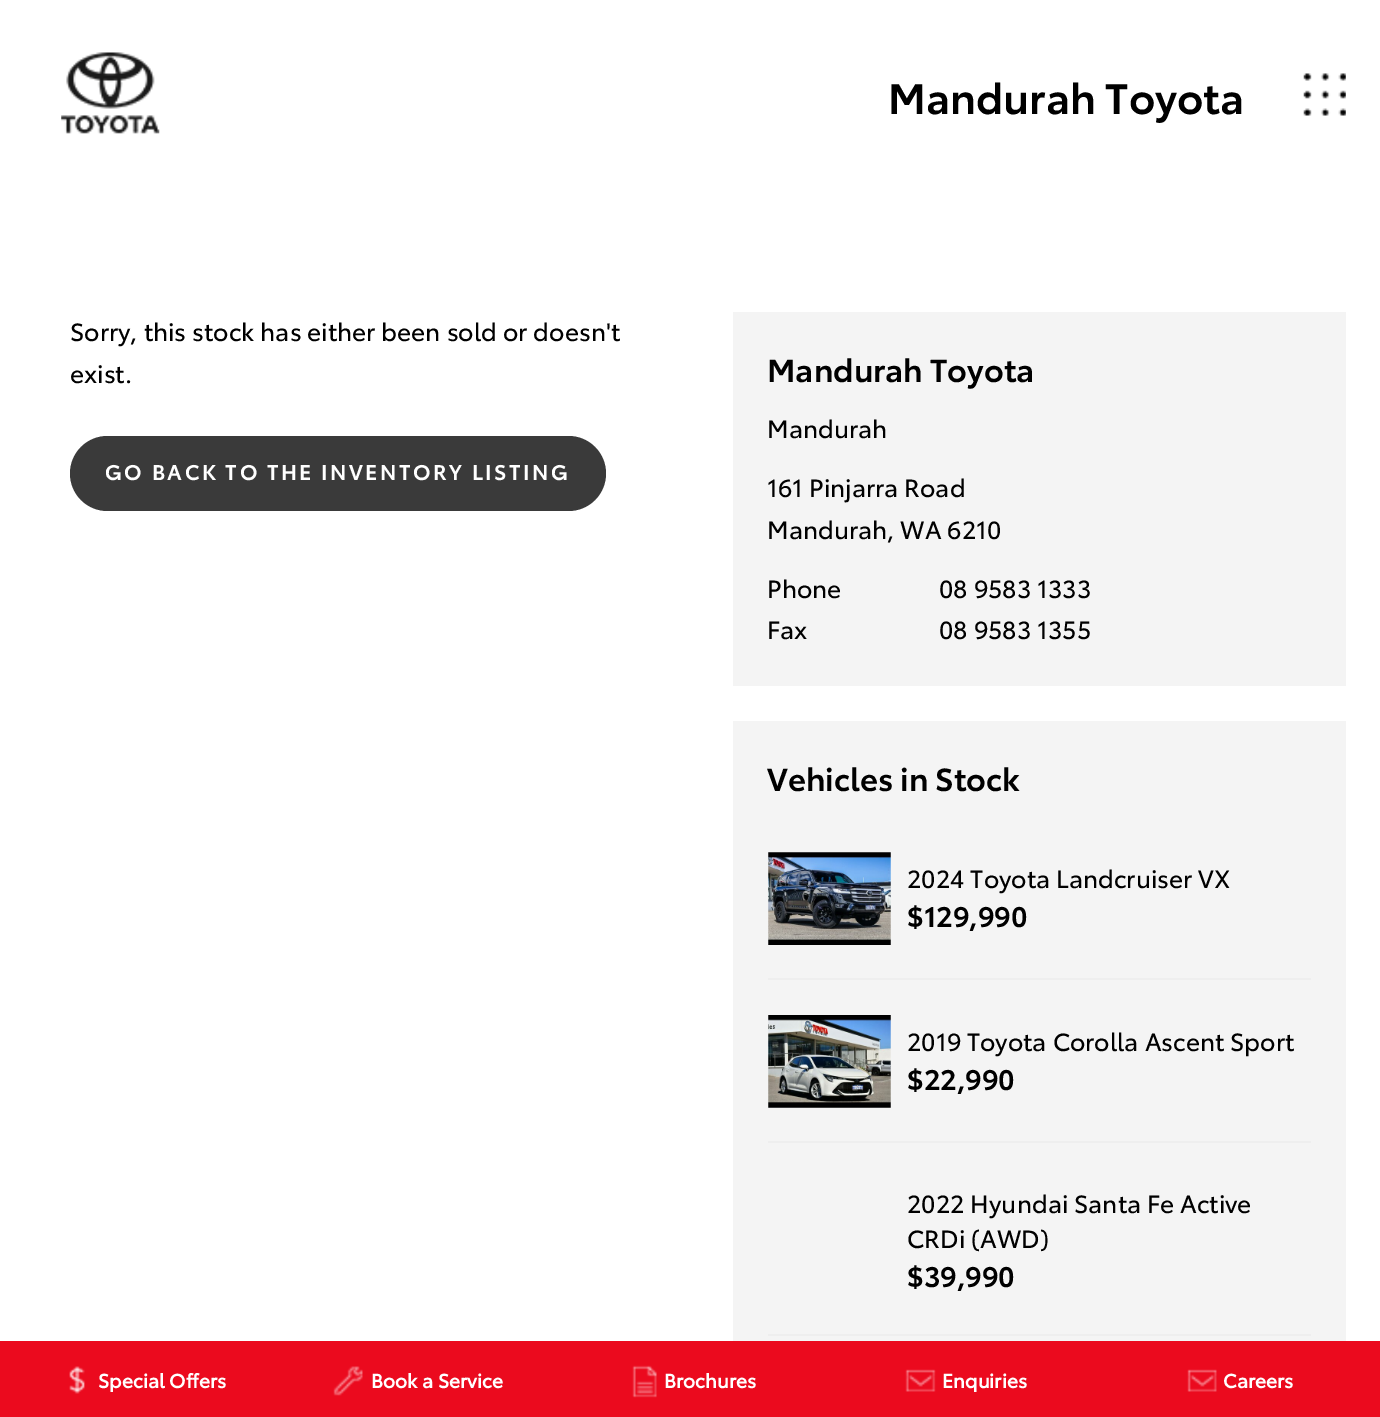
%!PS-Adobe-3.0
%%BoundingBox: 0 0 1380 1417
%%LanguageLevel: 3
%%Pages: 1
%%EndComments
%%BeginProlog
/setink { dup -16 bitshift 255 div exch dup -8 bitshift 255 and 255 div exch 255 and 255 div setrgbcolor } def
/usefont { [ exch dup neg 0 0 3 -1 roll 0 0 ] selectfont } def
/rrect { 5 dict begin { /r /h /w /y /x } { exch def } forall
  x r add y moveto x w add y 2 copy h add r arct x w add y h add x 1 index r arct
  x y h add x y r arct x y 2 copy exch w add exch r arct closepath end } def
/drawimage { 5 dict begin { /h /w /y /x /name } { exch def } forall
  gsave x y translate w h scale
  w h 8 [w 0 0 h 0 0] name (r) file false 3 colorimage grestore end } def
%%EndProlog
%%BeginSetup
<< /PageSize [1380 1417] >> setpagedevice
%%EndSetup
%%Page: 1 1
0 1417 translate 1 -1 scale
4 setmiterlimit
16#FFFFFF setink
0 0 1380 1417 rectfill
(img1.raw) 61 52 99 82 drawimage
/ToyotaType-SemiBold 42 usefont
16#000000 setink
888 114 moveto (Mandurah Toyota) show
(img2.raw) 1303 73 43 43 drawimage
/ToyotaType-Regular 24.5 usefont
70 341 moveto (Sorry, this stock has either been sold or doesn't) show
70 383 moveto (exist.) show
16#3A3A3A setink
70 436 536 75 37.5 rrect fill
/ToyotaType-SemiBold 21 usefont
16#FFFFFF setink
105 480 moveto 2.5 0 (GO BACK TO THE INVENTORY LISTING) ashow
16#F4F4F4 setink
733 312 613 374 rectfill
/ToyotaType-SemiBold 31.5 usefont
16#000000 setink
767 382 moveto (Mandurah Toyota) show
/ToyotaType-Regular 24.5 usefont
[
    [(Mandurah) 767 438]
    [(161 Pinjarra Road) 767 497]
    [(Mandurah, WA 6210) 767 539]
    [(Phone) 767 598]
    [(08 9583 1333) 939 598]
    [(Fax) 767 639]
    [(08 9583 1355) 939 639]
] { aload pop moveto show } forall
16#F4F4F4 setink
733 721 613 620 rectfill
/ToyotaType-SemiBold 31.5 usefont
16#000000 setink
767 791 moveto (Vehicles in Stock) show
(img3.raw) 768 852 123 93 drawimage
/ToyotaType-Regular 24.5 usefont
907 888 moveto (2024 Toyota Landcruiser VX) show
/ToyotaType-SemiBold 28 usefont
907 927 moveto ($129,990) show
16#EEEEEE setink
768 978 543 2 rectfill
(img4.raw) 768 1015 123 93 drawimage
/ToyotaType-Regular 24.5 usefont
16#000000 setink
907 1051 moveto (2019 Toyota Corolla Ascent Sport) show
/ToyotaType-SemiBold 28 usefont
907 1090 moveto ($22,990) show
16#EEEEEE setink
768 1141 543 2 rectfill
/ToyotaType-Regular 24.5 usefont
16#000000 setink
907 1213 moveto (2022 Hyundai Santa Fe Active) show
907 1248 moveto (CRDi \(AWD\)) show
/ToyotaType-SemiBold 28 usefont
907 1287 moveto ($39,990) show
16#EEEEEE setink
768 1334 543 2 rectfill
16#EB0A1E setink
0 1341 1380 76 rectfill
(img5.raw) 69 1366 16 28 drawimage
/ToyotaType-Bold 19.25 usefont
16#FFFFFF setink
98 1388 moveto (Special Offers) show
(img6.raw) 333 1366 30 30 drawimage
371 1388 moveto (Book a Service) show
(img7.raw) 632 1365 25 33 drawimage
664 1388 moveto (Brochures) show
(img8.raw) 905 1369 31 23 drawimage
942 1388 moveto (Enquiries) show
(img9.raw) 1187 1369 30 23 drawimage
1223 1388 moveto (Careers) show
showpage
%%EOF
